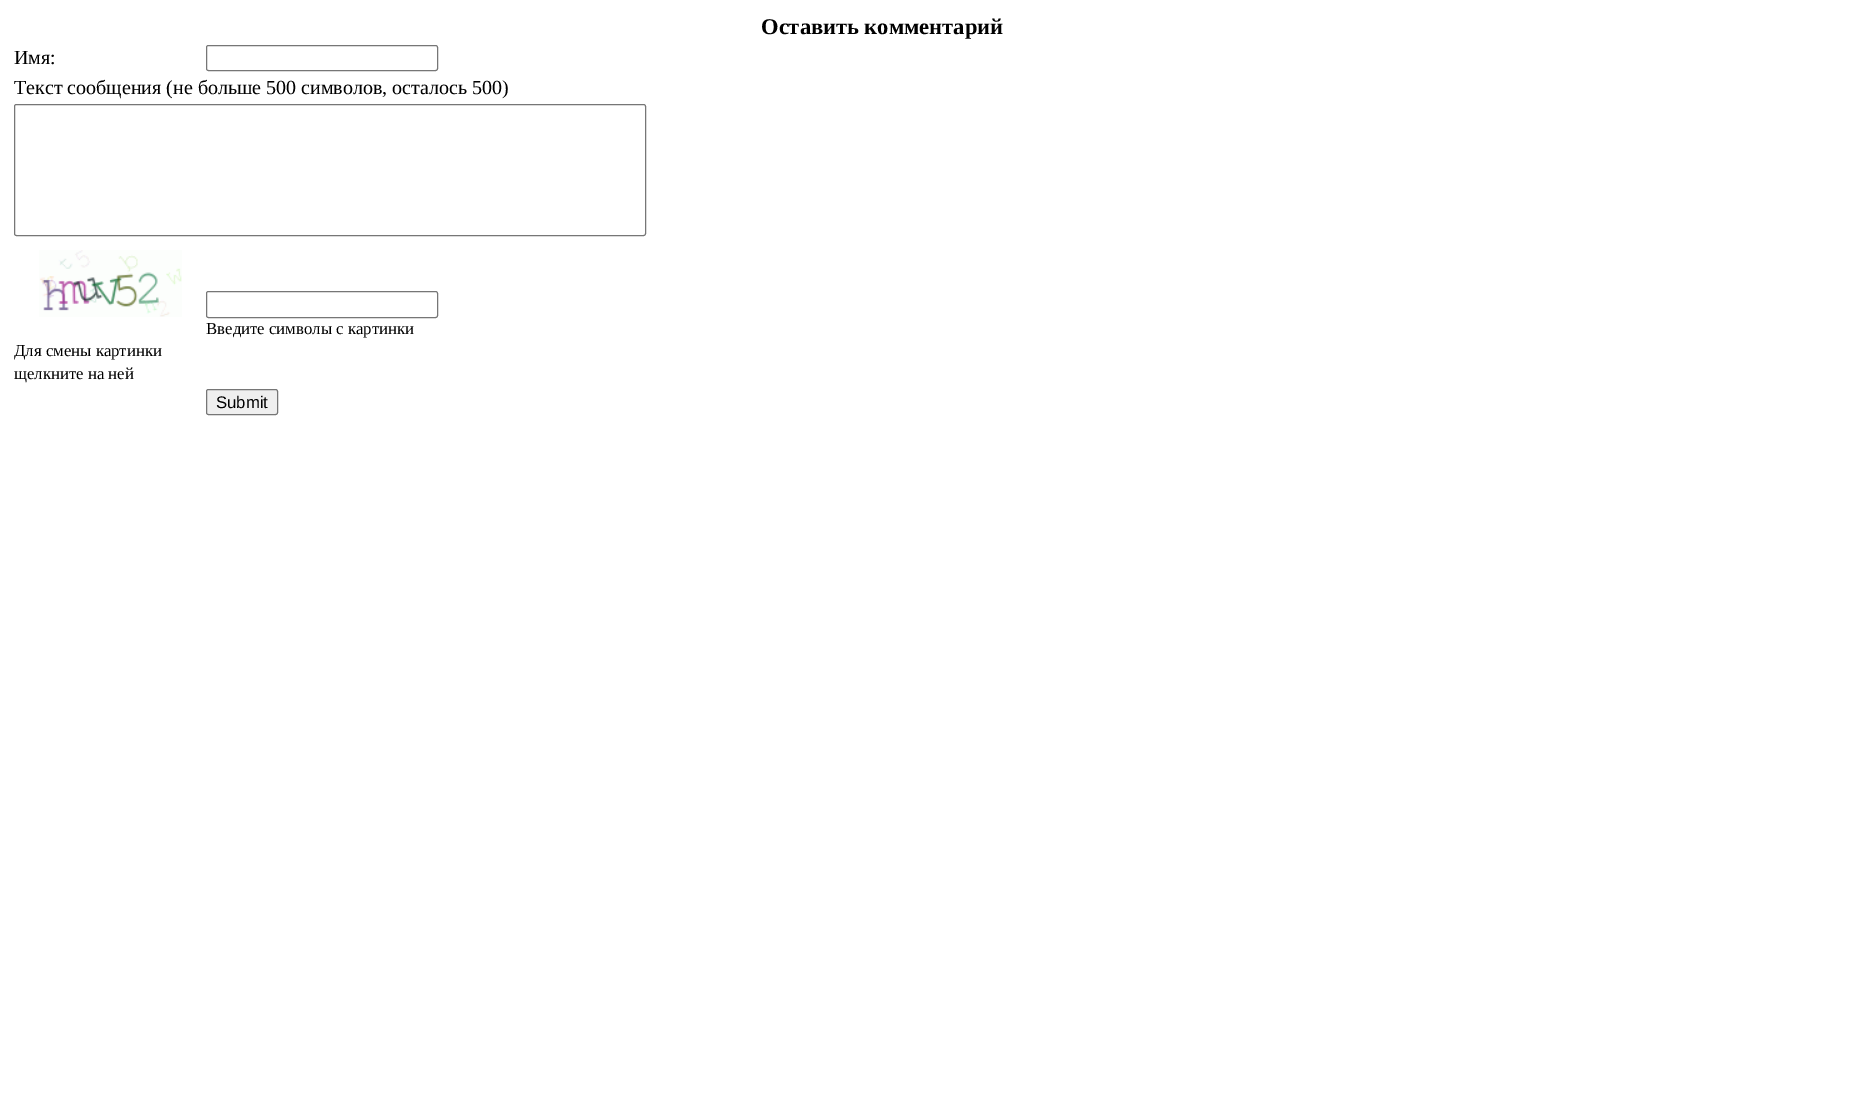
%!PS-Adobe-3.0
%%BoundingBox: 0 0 1856 1096
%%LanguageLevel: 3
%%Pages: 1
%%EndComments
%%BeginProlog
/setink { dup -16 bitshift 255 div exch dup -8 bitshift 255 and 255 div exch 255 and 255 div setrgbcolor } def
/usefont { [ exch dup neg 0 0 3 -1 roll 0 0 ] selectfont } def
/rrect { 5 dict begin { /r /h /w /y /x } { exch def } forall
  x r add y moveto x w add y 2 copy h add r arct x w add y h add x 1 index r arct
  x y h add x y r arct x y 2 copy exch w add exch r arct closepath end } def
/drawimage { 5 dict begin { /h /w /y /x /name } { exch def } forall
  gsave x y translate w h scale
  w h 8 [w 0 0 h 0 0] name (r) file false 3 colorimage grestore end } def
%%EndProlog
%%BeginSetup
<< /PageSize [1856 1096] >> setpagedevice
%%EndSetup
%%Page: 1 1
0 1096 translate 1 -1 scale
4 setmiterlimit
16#FFFFFF setink
0 0 1856 1096 rectfill
/LiberationSerif-Bold 22.5 usefont
16#000000 setink
761 34 moveto (Оставить комментарий) show
/LiberationSerif-Regular 20 usefont
14 64 moveto (Имя:) show
16#767676 setink
206.5 45.5 231 25 2 rrect stroke
16#000000 setink
14 94 moveto (Текст сообщения \(не больше 500 символов, осталось 500\)) show
16#767676 setink
14.5 104.5 631 131 2 rrect stroke
206.5 291.5 231 26 2 rrect stroke
/LiberationSerif-Regular 16.75 usefont
16#000000 setink
206 334 moveto (Введите символы с картинки) show
(img1.raw) 39 250 143 67 drawimage
14 356 moveto (Для смены картинки) show
14 379 moveto (щелкните на ней) show
16#EFEFEF setink
206.5 389.5 71 25 2 rrect gsave fill grestore
16#767676 setink
stroke
/LiberationSans-Regular 16.75 usefont
16#000000 setink
216 408 moveto (Submit) show
showpage
%%EOF
